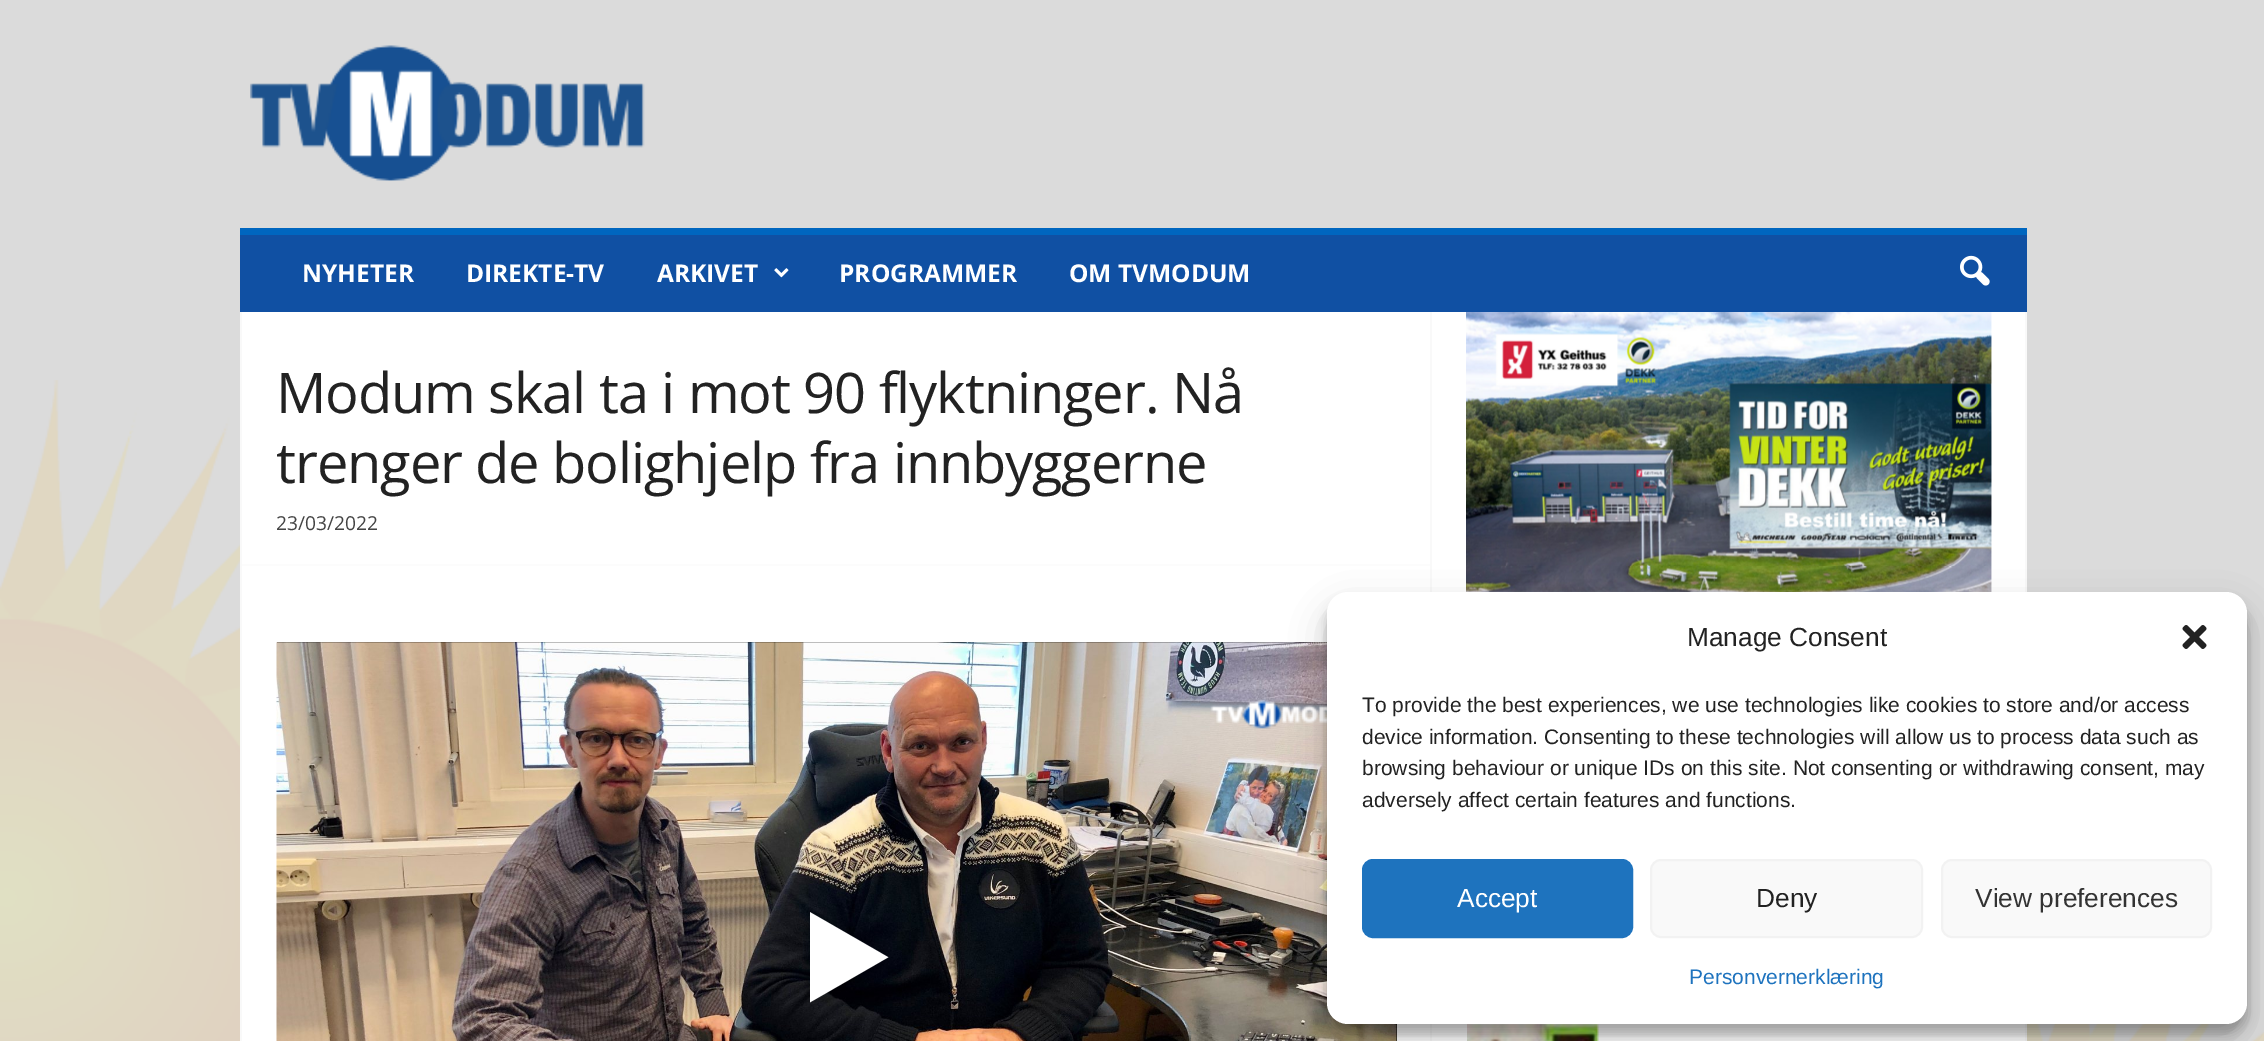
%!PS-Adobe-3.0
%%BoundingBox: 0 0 2264 1041
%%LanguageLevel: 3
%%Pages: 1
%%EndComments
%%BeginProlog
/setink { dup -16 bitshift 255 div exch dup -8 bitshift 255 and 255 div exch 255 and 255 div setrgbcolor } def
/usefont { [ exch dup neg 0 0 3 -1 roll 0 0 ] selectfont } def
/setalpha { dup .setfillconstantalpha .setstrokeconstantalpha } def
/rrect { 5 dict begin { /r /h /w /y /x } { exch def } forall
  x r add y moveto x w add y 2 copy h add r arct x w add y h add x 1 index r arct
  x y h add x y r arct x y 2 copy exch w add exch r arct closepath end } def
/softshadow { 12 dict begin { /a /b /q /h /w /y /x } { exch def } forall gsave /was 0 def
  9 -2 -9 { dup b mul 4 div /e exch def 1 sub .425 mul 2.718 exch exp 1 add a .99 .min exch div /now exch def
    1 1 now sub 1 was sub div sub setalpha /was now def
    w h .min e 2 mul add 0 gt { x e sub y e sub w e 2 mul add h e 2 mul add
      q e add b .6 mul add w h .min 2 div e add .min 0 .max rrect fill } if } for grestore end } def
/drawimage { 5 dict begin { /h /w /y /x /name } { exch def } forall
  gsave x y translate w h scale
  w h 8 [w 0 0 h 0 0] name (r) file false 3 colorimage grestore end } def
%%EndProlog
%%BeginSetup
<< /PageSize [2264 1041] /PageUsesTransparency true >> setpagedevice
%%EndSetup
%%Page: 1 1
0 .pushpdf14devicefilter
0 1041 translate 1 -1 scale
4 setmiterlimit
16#DBDBDB setink
0 0 2264 1041 rectfill
(img1.raw) 0 380 2264 661 drawimage
(img2.raw) 250 45 395 136 drawimage
16#1050A3 setink
240 235 1787 77 rectfill
16#0066BF setink
240 228 1787 7 rectfill
/OpenSans-Bold 24.5 usefont
16#FFFFFF setink
[
    [(NYHETER) 302 282]
    [(DIREKTE-TV) 466 282]
    [(ARKIVET) 657 282]
] { aload pop moveto show } forall
(img3.raw) 774 268 15 10 drawimage
839 282 moveto (PROGRAMMER) show
1069 282 moveto (OM TVMODUM) show
(img4.raw) 1960 255 30 31 drawimage
242 312 1783 729 rectfill
16#F9F9F9 setink
240 312 2 729 rectfill
/OpenSans-Regular 56 usefont
16#222222 setink
276 413 moveto -1.1 0 (Modum skal ta i mot 90 flyktninger. Nå) ashow
276 483 moveto -1.1 0 (trenger de bolighjelp fra innbyggerne) ashow
/OpenSans-Regular 19.25 usefont
16#444444 setink
276 530 moveto (23/03/2022) show
16#FCFCFC setink
242 564 1188 2 rectfill
16#000000 setink
277 642 1120 399 rectfill
(img5.raw) 276 642 1121 399 drawimage
(img6.raw) 1210 699 117 30 drawimage
(img7.raw) 804 912 85 91 drawimage
16#F9F9F9 setink
1430 312 2 729 rectfill
(img8.raw) 1466 312 526 280 drawimage
(img9.raw) 1467 1024 132 17 drawimage
2025 312 2 729 rectfill
16#000000 setink
1327 602 920 432 21 5 0.23 softshadow
1327 609 920 432 21 17.5 0.19 softshadow
16#FFFFFF setink
1327 592 920 432 21 rrect fill
/LiberationSans-Regular 26.25 usefont
16#222222 setink
1687 646 moveto (Manage Consent) show
(img10.raw) 2182 625 25 24 drawimage
/LiberationSans-Regular 21 usefont
[
    [(To provide the best experiences, we use technologies like cookies to store and/or access) 1362 712]
    [(device information. Consenting to these technologies will allow us to process data such as) 1362 744]
    [(browsing behaviour or unique IDs on this site. Not consenting or withdrawing consent, may) 1362 775]
    [(adversely affect certain features and functions.) 1362 807]
] { aload pop moveto show } forall
16#1E73BE setink
1363 860 269 77 10 rrect gsave fill grestore
2 setlinewidth
stroke
/LiberationSans-Regular 26.25 usefont
16#FFFFFF setink
1457 907 moveto (Accept) show
16#F9F9F9 setink
1651 860 271 77 10 rrect gsave fill grestore
16#F2F2F2 setink
stroke
16#222222 setink
1756 907 moveto (Deny) show
16#F9F9F9 setink
1942 860 269 77 10 rrect gsave fill grestore
16#F2F2F2 setink
stroke
16#333333 setink
1975 907 moveto (View preferences) show
/LiberationSans-Regular 21 usefont
16#1E73BE setink
1689 984 moveto (Personvernerklæring) show
.poppdf14devicefilter showpage
%%EOF
